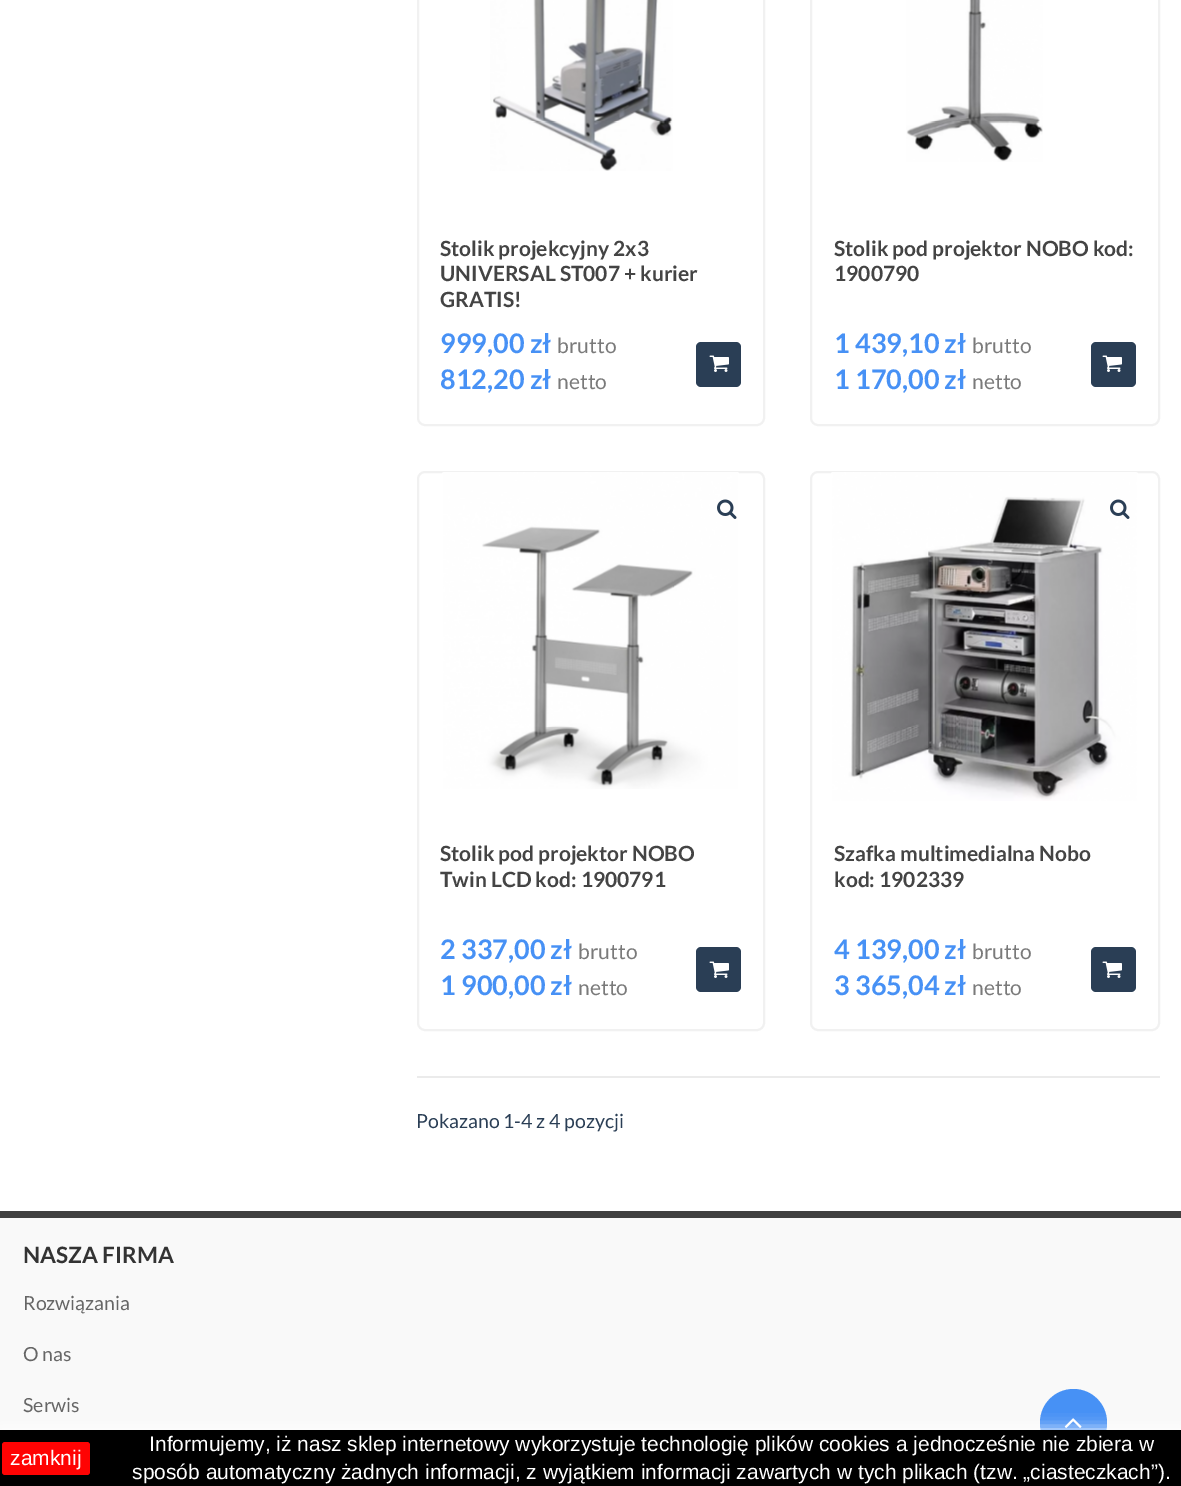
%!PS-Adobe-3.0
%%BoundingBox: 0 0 1181 1486
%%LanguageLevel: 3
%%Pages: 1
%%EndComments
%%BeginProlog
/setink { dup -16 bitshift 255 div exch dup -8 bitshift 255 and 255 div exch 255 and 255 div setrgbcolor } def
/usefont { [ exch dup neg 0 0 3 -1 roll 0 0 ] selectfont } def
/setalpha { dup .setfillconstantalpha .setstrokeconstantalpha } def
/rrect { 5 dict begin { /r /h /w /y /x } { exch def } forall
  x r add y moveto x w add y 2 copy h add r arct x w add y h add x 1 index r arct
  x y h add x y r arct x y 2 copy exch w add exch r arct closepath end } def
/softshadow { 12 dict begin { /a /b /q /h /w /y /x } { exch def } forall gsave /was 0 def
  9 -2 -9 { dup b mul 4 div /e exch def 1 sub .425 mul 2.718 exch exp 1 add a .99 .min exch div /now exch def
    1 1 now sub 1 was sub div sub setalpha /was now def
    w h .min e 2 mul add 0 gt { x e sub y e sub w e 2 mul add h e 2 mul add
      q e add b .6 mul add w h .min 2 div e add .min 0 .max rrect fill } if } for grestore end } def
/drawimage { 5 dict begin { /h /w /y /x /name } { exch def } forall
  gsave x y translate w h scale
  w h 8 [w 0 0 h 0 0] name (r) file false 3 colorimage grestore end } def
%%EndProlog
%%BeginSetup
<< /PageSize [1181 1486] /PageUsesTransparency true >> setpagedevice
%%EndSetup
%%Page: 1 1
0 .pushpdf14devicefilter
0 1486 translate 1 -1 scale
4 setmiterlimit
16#FFFFFF setink
0 0 1181 1486 rectfill
16#F1F1F1 setink
2 setlinewidth
418 -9 346 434 7 rrect stroke
(img1.raw) 490 0 183 171 drawimage
/Lato-Bold 21 usefont
16#444444 setink
[
    [(Stolik projekcyjny 2x3) 440 256]
    [(UNIVERSAL ST007 + kurier) 440 281]
    [(GRATIS!) 440 307]
] { aload pop moveto show } forall
/Lato-Bold 27 usefont
16#4791F5 setink
440 353 moveto (999,00 zł) show
/Lato-Regular 21 usefont
16#7A7A7A setink
557 353 moveto (brutto) show
/Lato-Bold 27 usefont
16#4791F5 setink
440 389 moveto (812,20 zł) show
/Lato-Regular 21 usefont
16#7A7A7A setink
557 389 moveto (netto) show
16#2A3E55 setink
696 342 45 45 5 rrect fill
(img2.raw) 709 355 20 17 drawimage
16#F1F1F1 setink
811 -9 348 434 7 rrect stroke
(img3.raw) 906 0 137 162 drawimage
/Lato-Bold 21 usefont
16#444444 setink
834 256 moveto (Stolik pod projektor NOBO kod:) show
834 281 moveto (1900790) show
/Lato-Bold 27 usefont
16#4791F5 setink
834 353 moveto (1 439,10 zł) show
/Lato-Regular 21 usefont
16#7A7A7A setink
972 353 moveto (brutto) show
/Lato-Bold 27 usefont
16#4791F5 setink
834 389 moveto (1 170,00 zł) show
/Lato-Regular 21 usefont
16#7A7A7A setink
972 389 moveto (netto) show
16#2A3E55 setink
1091 342 45 45 5 rrect fill
(img2.raw) 1102 355 20 17 drawimage
16#F1F1F1 setink
418 472 346 558 7 rrect stroke
(img4.raw) 442 472 297 317 drawimage
(img5.raw) 717 499 20 20 drawimage
/Lato-Bold 21 usefont
16#444444 setink
440 861 moveto (Stolik pod projektor NOBO) show
440 887 moveto (Twin LCD kod: 1900791) show
/Lato-Bold 27 usefont
16#4791F5 setink
440 959 moveto (2 337,00 zł) show
/Lato-Regular 21 usefont
16#7A7A7A setink
578 959 moveto (brutto) show
/Lato-Bold 27 usefont
16#4791F5 setink
440 995 moveto (1 900,00 zł) show
/Lato-Regular 21 usefont
16#7A7A7A setink
578 995 moveto (netto) show
16#2A3E55 setink
696 947 45 45 5 rrect fill
(img2.raw) 709 961 20 17 drawimage
16#F1F1F1 setink
811 472 348 558 7 rrect stroke
(img6.raw) 831 472 307 329 drawimage
(img7.raw) 1110 499 20 20 drawimage
/Lato-Bold 21 usefont
16#444444 setink
834 861 moveto (Szafka multimedialna Nobo) show
834 887 moveto (kod: 1902339) show
/Lato-Bold 27 usefont
16#4791F5 setink
834 959 moveto (4 139,00 zł) show
/Lato-Regular 21 usefont
16#7A7A7A setink
972 959 moveto (brutto) show
/Lato-Bold 27 usefont
16#4791F5 setink
834 995 moveto (3 365,04 zł) show
/Lato-Regular 21 usefont
16#7A7A7A setink
972 995 moveto (netto) show
16#2A3E55 setink
1091 947 45 45 5 rrect fill
(img2.raw) 1102 961 20 17 drawimage
16#EBEBEB setink
417 1076 743 2 rectfill
/Lato-Regular 19.5 usefont
16#2A3E55 setink
416 1128 moveto (Pokazano 1-4 z 4 pozycji) show
16#F9F9F9 setink
0 1218 1181 212 rectfill
16#404040 setink
0 1211 1181 7 rectfill
/Lato-Bold 22.5 usefont
16#333333 setink
23 1263 moveto (NASZA FIRMA) show
/Lato-Regular 19.5 usefont
16#666666 setink
[
    [(Rozwiązania) 23 1310]
    [(O nas) 23 1361]
    [(Serwis) 23 1412]
] { aload pop moveto show } forall
16#4791F5 setink
1040 1389 67 68 33.5 rrect fill
(img8.raw) 1064 1418 18 10 drawimage
16#FFFFFF setink
0 1430 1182 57 0 7.5 1 softshadow
16#000000 setink
0 1430 1181 56 rectfill
16#FF0303 setink
2 1442 88 33 3 rrect fill
/LiberationSans-Regular 21 usefont
16#FFFFFF setink
[
    [(zamknij) 10 1465]
    [(Informujemy, iż nasz sklep internetowy wykorzystuje technologię plików cookies a jednocześnie nie zbiera w) 149 1451]
    [(sposób automatyczny żadnych informacji, z wyjątkiem informacji zawartych w tych plikach \(tzw. „ciasteczkach”\).) 132 1479]
] { aload pop moveto show } forall
.poppdf14devicefilter showpage
%%EOF
